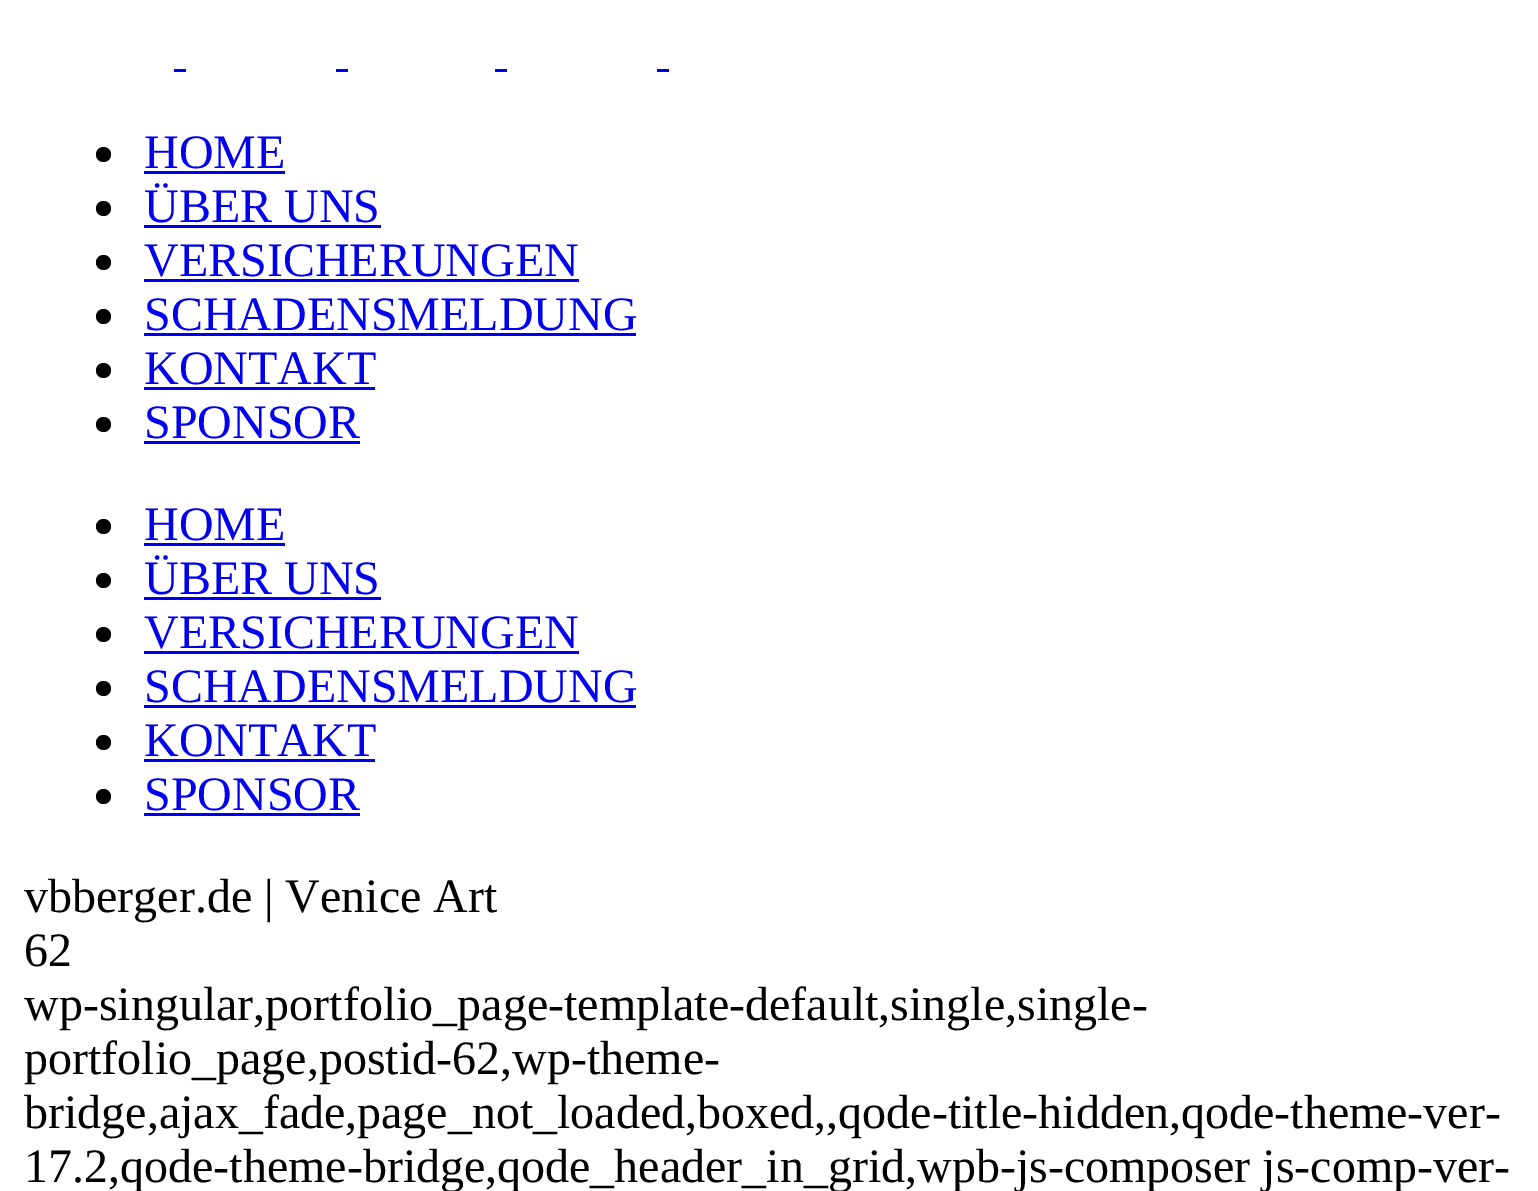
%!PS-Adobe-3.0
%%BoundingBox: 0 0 1538 1191
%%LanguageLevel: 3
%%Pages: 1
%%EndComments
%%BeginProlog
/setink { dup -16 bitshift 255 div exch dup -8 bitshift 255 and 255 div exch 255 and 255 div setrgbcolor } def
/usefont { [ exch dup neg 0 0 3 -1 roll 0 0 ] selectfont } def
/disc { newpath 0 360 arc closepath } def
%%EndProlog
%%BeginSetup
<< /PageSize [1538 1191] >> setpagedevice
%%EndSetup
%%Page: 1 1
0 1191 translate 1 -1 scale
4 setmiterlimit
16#FFFFFF setink
0 0 1538 1191 rectfill
[
    [174 69 12 3 16#0000EE]
    [336 69 12 3 16#0000EE]
    [495 69 12 3 16#0000EE]
    [657 69 12 3 16#0000EE]
] { aload pop setink rectfill } forall
16#000000 setink
103.5 154.5 7.5 disc fill
/LiberationSerif-Regular 48 usefont
16#0000EE setink
144 168 moveto (HOME) show
144 171 141 3 rectfill
16#000000 setink
103.5 208.5 7.5 disc fill
16#0000EE setink
144 222 moveto (ÜBER UNS) show
144 225 237 3 rectfill
16#000000 setink
103.5 262.5 7.5 disc fill
16#0000EE setink
144 276 moveto (VERSICHERUNGEN) show
144 279 435 3 rectfill
16#000000 setink
103.5 316.5 7.5 disc fill
16#0000EE setink
144 330 moveto (SCHADENSMELDUNG) show
144 333 492 3 rectfill
16#000000 setink
103.5 370.5 7.5 disc fill
16#0000EE setink
144 384 moveto (KONTAKT) show
144 387 231 3 rectfill
16#000000 setink
103.5 424.5 7.5 disc fill
16#0000EE setink
144 438 moveto (SPONSOR) show
144 441 216 3 rectfill
16#000000 setink
103.5 526.5 7.5 disc fill
16#0000EE setink
144 540 moveto (HOME) show
144 543 141 3 rectfill
16#000000 setink
103.5 580.5 7.5 disc fill
16#0000EE setink
144 594 moveto (ÜBER UNS) show
144 597 237 3 rectfill
16#000000 setink
103.5 634.5 7.5 disc fill
16#0000EE setink
144 648 moveto (VERSICHERUNGEN) show
144 651 435 3 rectfill
16#000000 setink
103.5 688.5 7.5 disc fill
16#0000EE setink
144 702 moveto (SCHADENSMELDUNG) show
144 705 492 3 rectfill
16#000000 setink
103.5 742.5 7.5 disc fill
16#0000EE setink
144 756 moveto (KONTAKT) show
144 759 231 3 rectfill
16#000000 setink
103.5 796.5 7.5 disc fill
16#0000EE setink
144 810 moveto (SPONSOR) show
144 813 216 3 rectfill
16#000000 setink
[
    [(vbberger.de | Venice Art) 24 912]
    [(62) 24 966]
    [(wp-singular,portfolio_page-template-default,single,single-) 24 1020]
    [(portfolio_page,postid-62,wp-theme-) 24 1074]
    [(bridge,ajax_fade,page_not_loaded,boxed,,qode-title-hidden,qode-theme-ver-) 24 1128]
    [(17.2,qode-theme-bridge,qode_header_in_grid,wpb-js-composer js-comp-ver-) 24 1182]
] { aload pop moveto show } forall
showpage
%%EOF
